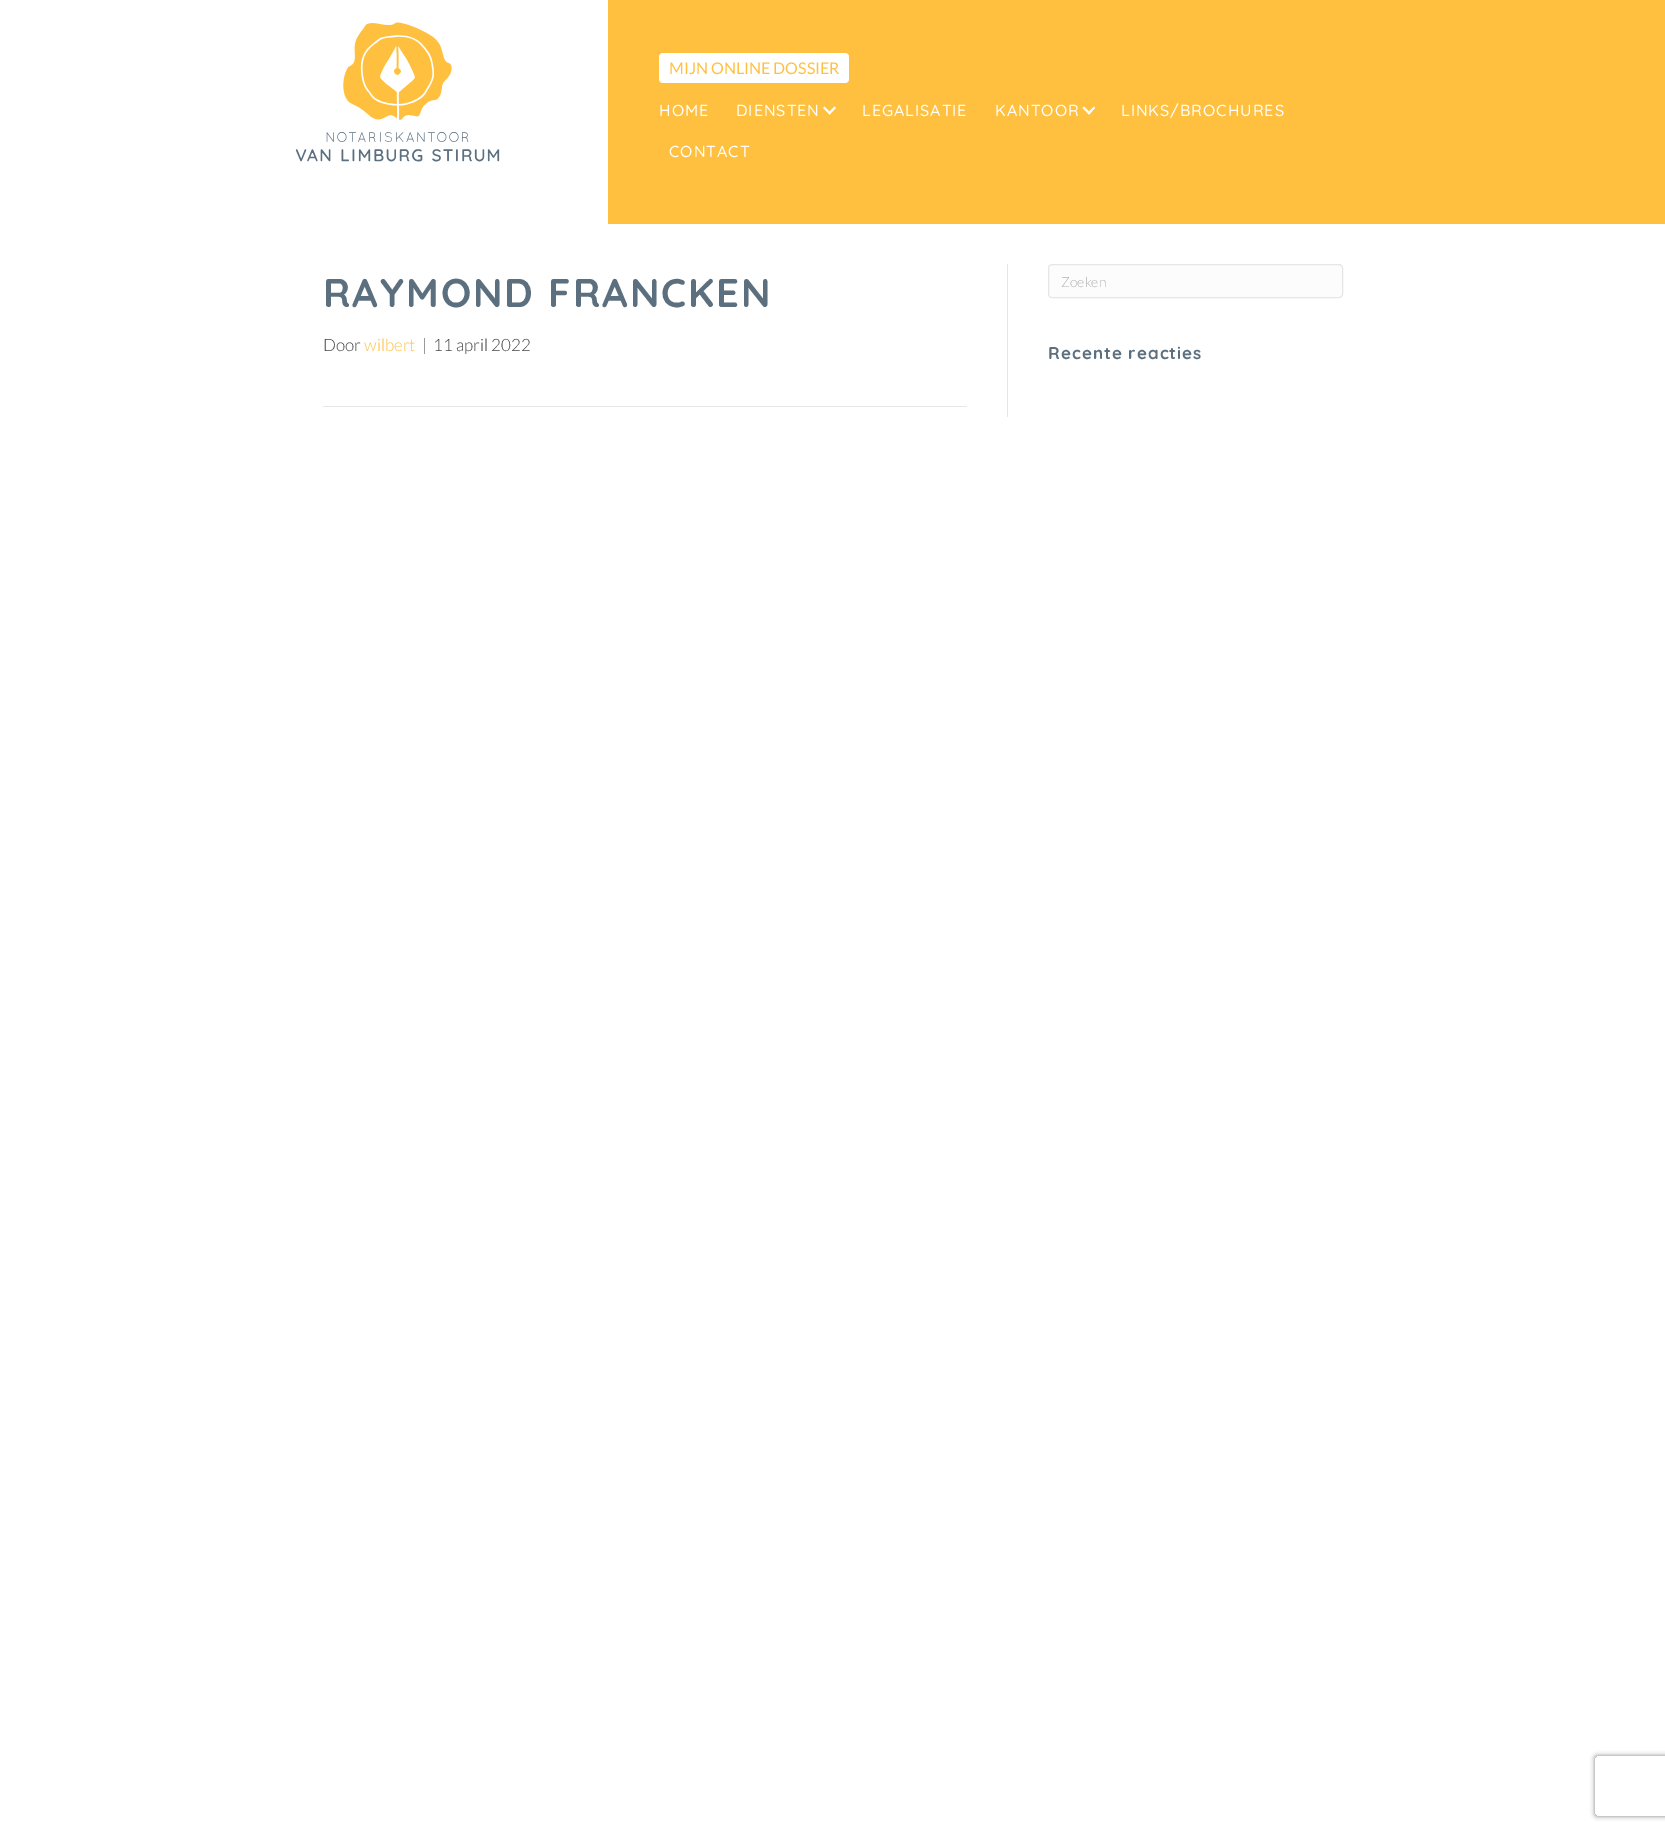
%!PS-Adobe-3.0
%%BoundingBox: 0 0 1665 1830
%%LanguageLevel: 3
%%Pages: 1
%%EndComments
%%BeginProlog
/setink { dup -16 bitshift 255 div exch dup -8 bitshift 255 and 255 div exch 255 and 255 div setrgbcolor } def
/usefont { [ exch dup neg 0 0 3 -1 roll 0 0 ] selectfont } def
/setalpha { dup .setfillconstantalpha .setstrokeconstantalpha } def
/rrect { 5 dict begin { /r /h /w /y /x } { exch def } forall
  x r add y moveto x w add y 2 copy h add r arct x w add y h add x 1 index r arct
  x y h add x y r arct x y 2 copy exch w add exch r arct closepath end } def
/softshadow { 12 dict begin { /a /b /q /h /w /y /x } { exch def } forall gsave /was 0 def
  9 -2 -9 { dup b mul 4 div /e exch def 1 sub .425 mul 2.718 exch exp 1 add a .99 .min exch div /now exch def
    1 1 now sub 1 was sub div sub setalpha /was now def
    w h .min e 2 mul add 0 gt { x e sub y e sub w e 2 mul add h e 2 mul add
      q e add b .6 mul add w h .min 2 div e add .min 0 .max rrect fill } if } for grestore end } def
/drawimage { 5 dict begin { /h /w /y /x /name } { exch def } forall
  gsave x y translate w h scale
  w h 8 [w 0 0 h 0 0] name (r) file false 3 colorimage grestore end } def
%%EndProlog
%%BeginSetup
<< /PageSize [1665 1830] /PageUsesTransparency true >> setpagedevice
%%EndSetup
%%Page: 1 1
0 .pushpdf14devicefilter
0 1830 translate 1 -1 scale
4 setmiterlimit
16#FFFFFF setink
0 0 1665 1830 rectfill
16#FFC03F setink
608 0 1057 224 rectfill
(img1.raw) 295 22 205 140 drawimage
16#FFFFFF setink
659 53 190 30 4 rrect fill
/Lato-Regular 16 usefont
16#FFC03F setink
669 74 moveto (MIJN ONLINE DOSSIER) show
/Quicksand-Medium 16 usefont
16#FFFFFF setink
659 116 moveto 1 0 (HOME) ashow
736 116 moveto 1 0 (DIENSTEN) ashow
834.5 106.5 moveto 836 108 lineto 829.5 114.5 lineto 828 113 lineto closepath fill
824.5 106.5 moveto 831 113 lineto 829.5 114.5 lineto 823 108 lineto closepath fill
862 116 moveto 1 0 (LEGALISATIE) ashow
995 116 moveto 1 0 (KANTOOR) ashow
1094 106.5 moveto 1095 108 lineto 1089 114.5 lineto 1087.5 113 lineto closepath fill
1084 106.5 moveto 1090.5 113 lineto 1089 114.5 lineto 1082.5 108 lineto closepath fill
1121 116 moveto 1 0 (LINKS/BROCHURES) ashow
669 157 moveto 1 0 (CONTACT) ashow
16#E6E6E6 setink
1007 264 1 153 rectfill
/Quicksand-Bold 40 usefont
16#5B6F7F setink
323 307 moveto 2 0 (RAYMOND FRANCKEN) ashow
/Lato-Light 17 usefont
16#434343 setink
323 351 moveto (Door) show
16#FFC03F setink
364 351 moveto (wilbert) show
16#434343 setink
422 351 moveto (|) show
433 351 moveto (11 april 2022) show
16#E6E6E6 setink
323 406 644 1 rectfill
16#FCFCFC setink
1048.5 264.5 294 33 3.5 rrect gsave fill grestore
16#E6E6E6 setink
stroke
/Lato-Light 14 usefont
16#B2B2B2 setink
1061 287 moveto (Zoeken) show
/Quicksand-Bold 17 usefont
16#5B6F7F setink
1048 359 moveto 1 0 (Recente reacties) ashow
gsave
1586 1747 moveto 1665 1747 lineto 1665 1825 lineto 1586 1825 lineto closepath 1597 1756 moveto 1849 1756 lineto 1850 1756 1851 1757 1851 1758 curveto 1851 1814 lineto 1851 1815 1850 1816 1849 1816 curveto 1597 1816 lineto 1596 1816 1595 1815 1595 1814 curveto 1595 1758 lineto 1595 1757 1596 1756 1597 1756 curveto closepath eoclip newpath
16#808080 setink
1595 1756 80 60 2 2.5 1 softshadow
grestore
.poppdf14devicefilter showpage
%%EOF
